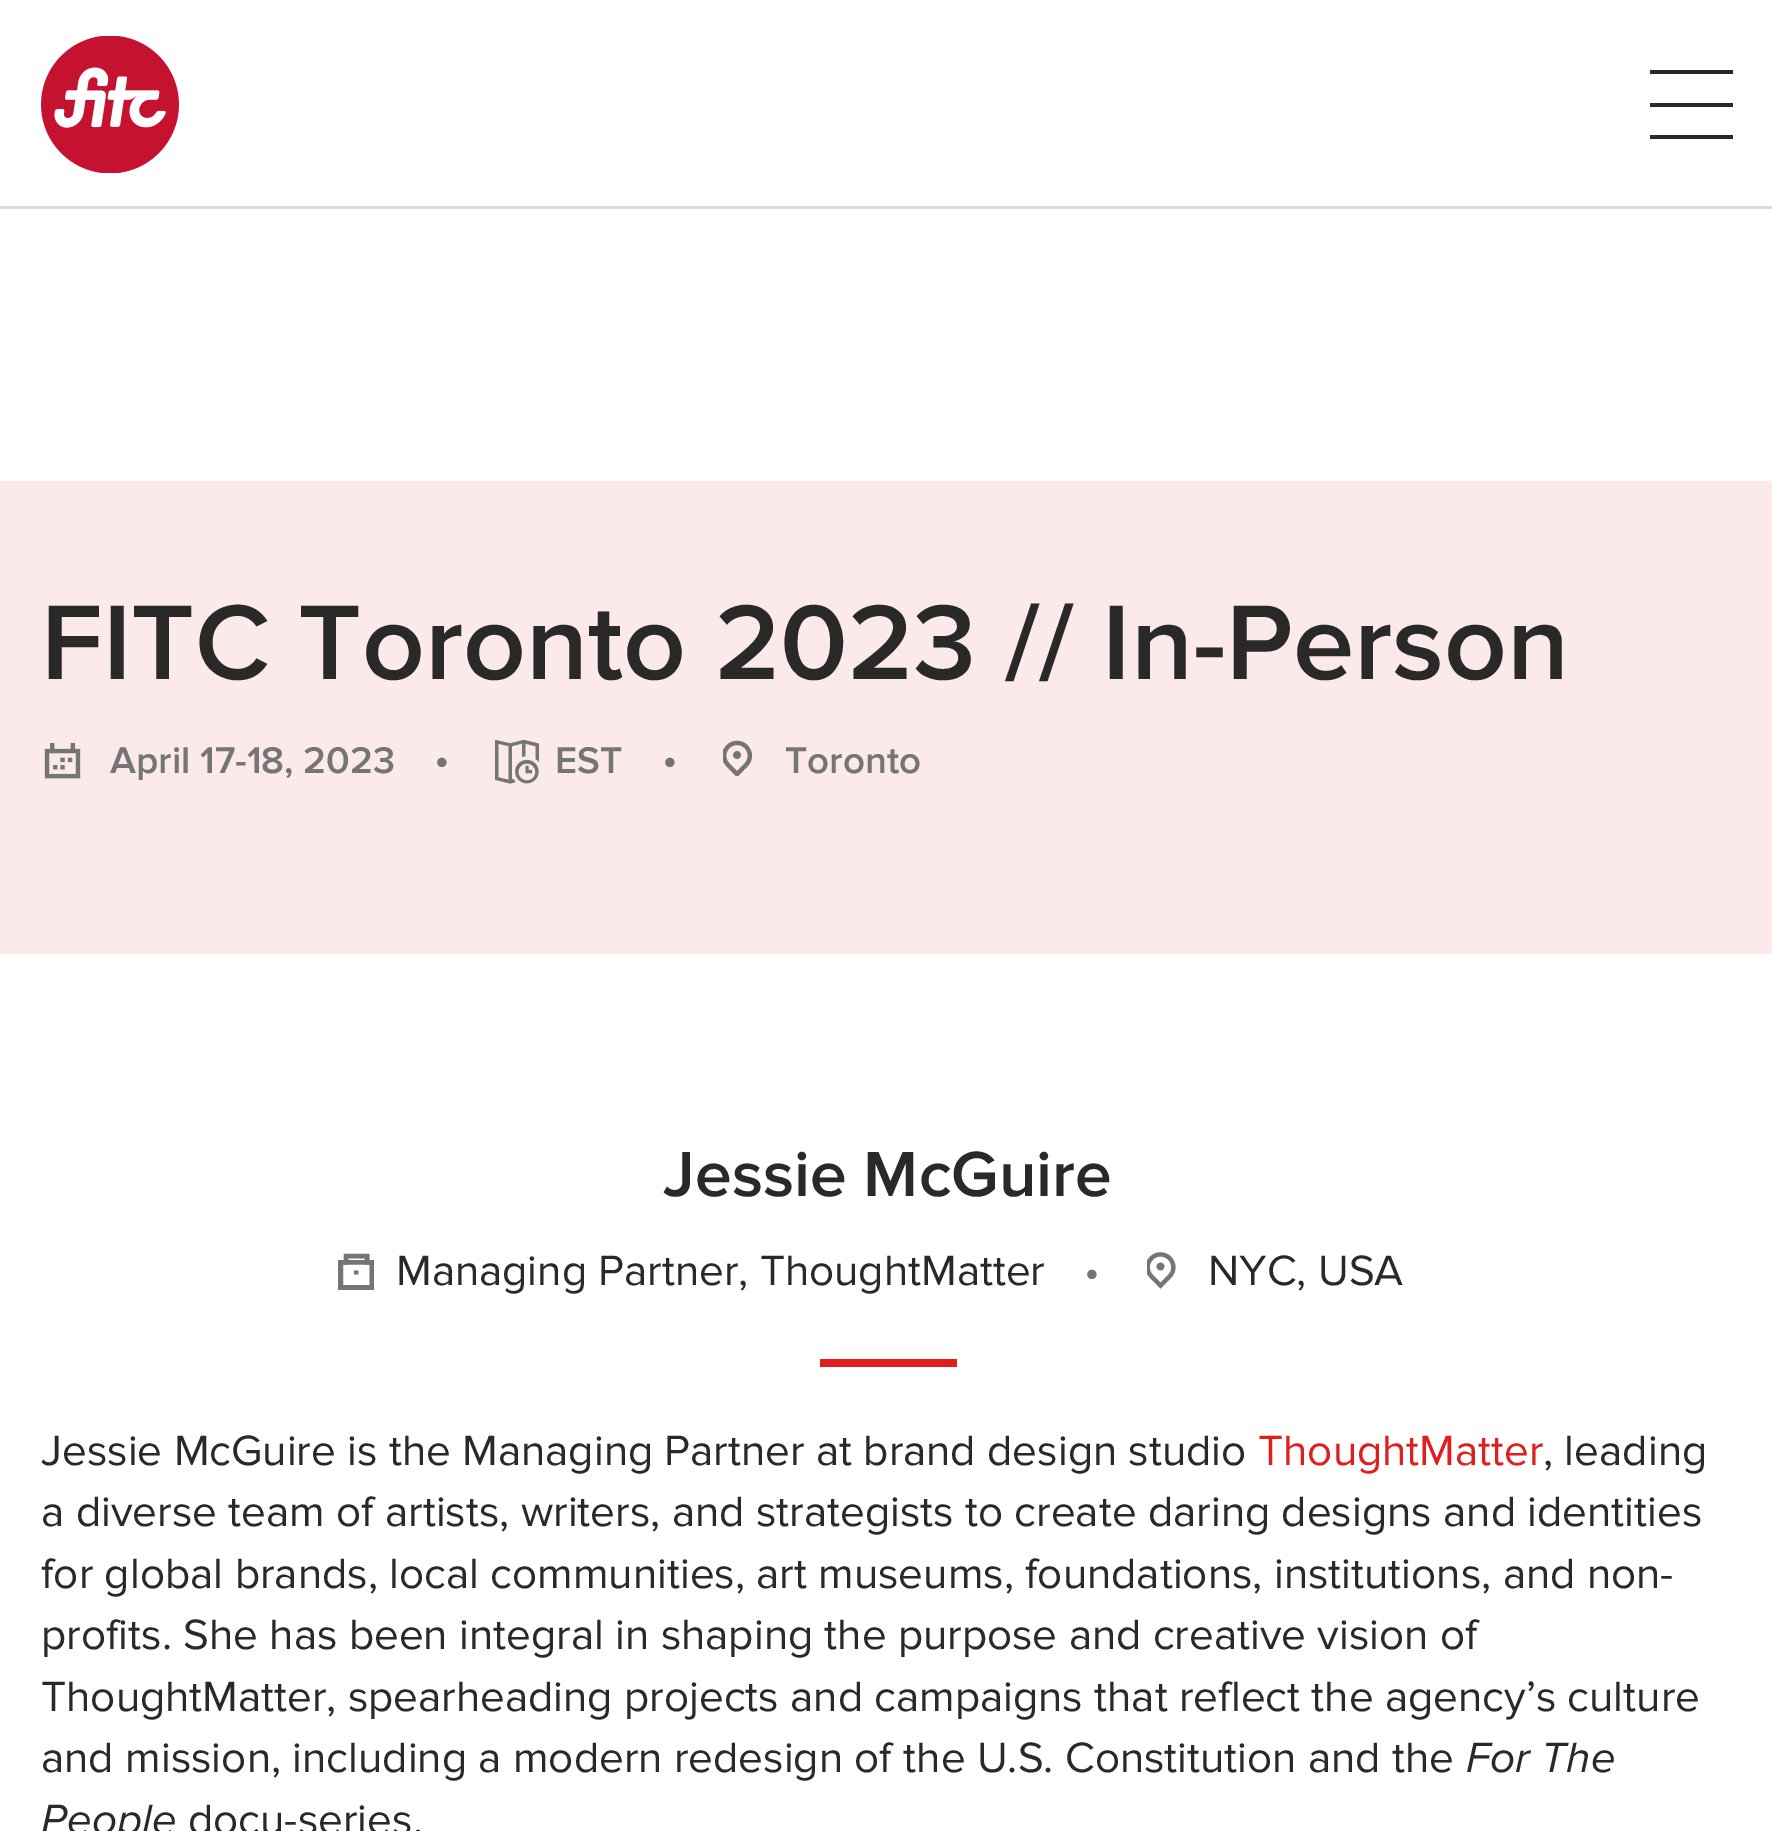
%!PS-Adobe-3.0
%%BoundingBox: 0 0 1772 1831
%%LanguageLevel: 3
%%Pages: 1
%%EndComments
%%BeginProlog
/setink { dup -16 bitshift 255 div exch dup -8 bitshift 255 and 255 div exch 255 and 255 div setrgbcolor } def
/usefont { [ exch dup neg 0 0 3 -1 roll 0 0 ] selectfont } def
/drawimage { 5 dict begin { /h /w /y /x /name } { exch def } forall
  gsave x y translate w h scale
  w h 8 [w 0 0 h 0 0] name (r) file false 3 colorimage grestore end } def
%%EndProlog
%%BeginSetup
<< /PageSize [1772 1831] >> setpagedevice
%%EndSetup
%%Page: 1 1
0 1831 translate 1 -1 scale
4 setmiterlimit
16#FFFFFF setink
0 0 1772 1831 rectfill
16#DBDBDB setink
0 206 1772 3 rectfill
(img1.raw) 41 36 138 137 drawimage
[
    [1650 135 83 4 16#292929]
    [1650 103 83 4 16#292929]
    [1650 70 83 4 16#292929]
    [0 481 1772 473 16#FCE9E9]
] { aload pop setink rectfill } forall
/ProximaNova-SemiBold 110 usefont
16#292929 setink
41 679 moveto (FITC Toronto 2023 // In-Person) show
(img2.raw) 44 743 37 36 drawimage
/ProximaNova-SemiBold 38.5 usefont
16#757575 setink
110 773 moveto (April 17-18, 2023) show
/ProximaNova-Regular 44 usefont
434 773 moveto (•) show
(img3.raw) 495 740 44 44 drawimage
/ProximaNova-SemiBold 38.5 usefont
555 773 moveto (EST) show
/ProximaNova-Regular 44 usefont
662 773 moveto (•) show
(img4.raw) 723 740 30 36 drawimage
/ProximaNova-SemiBold 38.5 usefont
785 773 moveto (Toronto) show
/ProximaNova-SemiBold 66 usefont
16#292929 setink
663 1196 moveto (Jessie McGuire) show
16#757575 setink
4.5 setlinewidth
2 setlinecap
367 1262.5 moveto 367 1256 lineto 346 1256 lineto 346 1262.5 lineto stroke
gsave
338.5 1260 moveto 374 1260 lineto 374 1289.5 lineto 338.5 1289.5 lineto closepath clip newpath
8.9 setlinewidth
0 setlinecap
338.5 1260 moveto 374 1260 lineto 374 1289.5 lineto 338.5 1289.5 lineto closepath stroke
grestore
354 1270.5 moveto 358.5 1270.5 lineto 358.5 1274.5 lineto 354 1274.5 lineto closepath eofill
/ProximaNova-Regular 44 usefont
16#292929 setink
396 1285 moveto (Managing Partner, ThoughtMatter) show
16#757575 setink
1084 1285 moveto (•) show
(img5.raw) 1147 1252 29 37 drawimage
16#292929 setink
1208 1285 moveto (NYC, USA) show
16#DF1E1E setink
820 1359 137 8 rectfill
16#292929 setink
41 1465 moveto (Jessie McGuire is the Managing Partner at brand design studio) show
16#DF1E1E setink
1258 1465 moveto (ThoughtMatter) show
16#292929 setink
[
    [(, leading) 1543 1465]
    [(a diverse team of artists, writers, and strategists to create daring designs and identities) 41 1526]
    [(for global brands, local communities, art museums, foundations, institutions, and non-) 41 1588]
    [(profits. She has been integral in shaping the purpose and creative vision of) 41 1649]
    [(ThoughtMatter, spearheading projects and campaigns that reflect the agency’s culture) 41 1711]
    [(and mission, including a modern redesign of the U.S. Constitution and the) 41 1772]
] { aload pop moveto show } forall
/ProximaNova-Italic 44 usefont
1466 1772 moveto (For The) show
41 1834 moveto (People) show
/ProximaNova-Regular 44 usefont
188 1834 moveto (docu-series.) show
showpage
%%EOF
